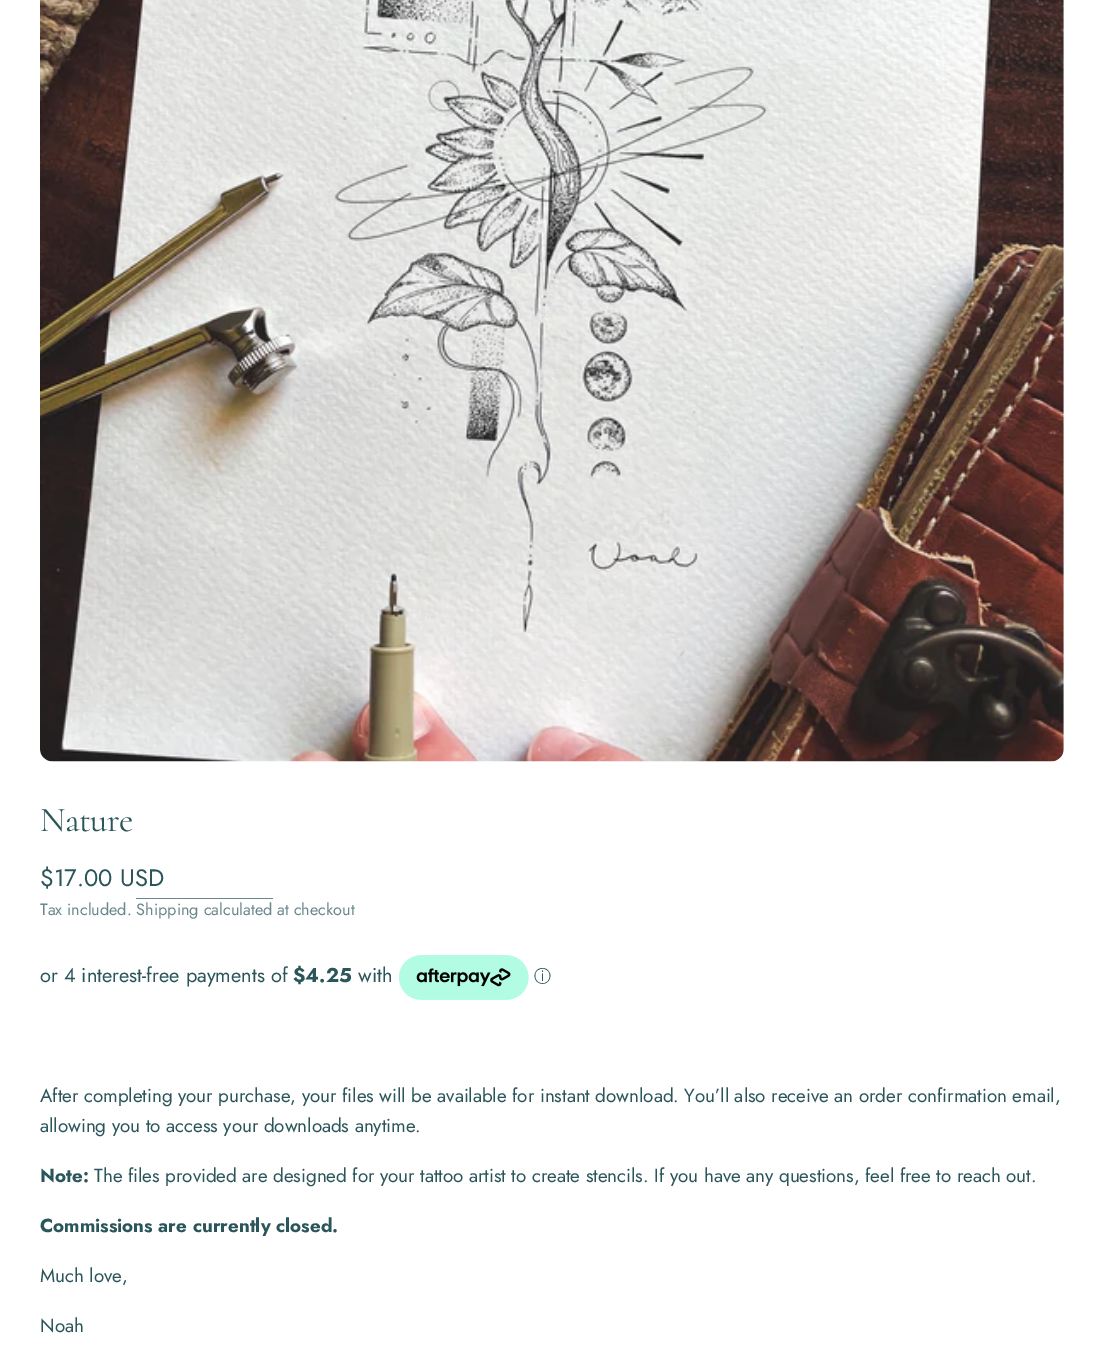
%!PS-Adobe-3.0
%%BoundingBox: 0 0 1103 1347
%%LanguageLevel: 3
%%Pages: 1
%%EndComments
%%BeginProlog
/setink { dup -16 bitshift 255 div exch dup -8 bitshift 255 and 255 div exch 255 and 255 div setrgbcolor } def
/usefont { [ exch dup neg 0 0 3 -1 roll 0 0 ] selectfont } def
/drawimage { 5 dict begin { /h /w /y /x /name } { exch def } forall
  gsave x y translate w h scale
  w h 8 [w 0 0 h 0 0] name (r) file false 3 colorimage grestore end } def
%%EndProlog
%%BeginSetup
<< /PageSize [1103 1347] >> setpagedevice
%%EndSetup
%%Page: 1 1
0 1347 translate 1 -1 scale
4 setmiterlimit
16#FFFFFF setink
0 0 1103 1347 rectfill
(img1.raw) 40 0 1024 762 drawimage
/Cormorant-Regular 35 usefont
16#2A555A setink
40 831 moveto -0.5 0 (Nature) ashow
/Jost-Regular 23.75 usefont
40 886 moveto ($17.00 USD) show
16#6A888C setink
136 898 137 1 rectfill
/Jost-Regular 16.25 usefont
40 915 moveto (Tax included. Shipping calculated at checkout) show
/Jost-Regular 20 usefont
16#2A555A setink
40 982 moveto (or 4 interest-free payments of) show
/Jost-Bold 20 usefont
293 982 moveto ($4.25) show
/Jost-Regular 20 usefont
358 982 moveto (with) show
(img2.raw) 399 955 130 45 drawimage
/WenQuanYiZenHei-Medium 17 usefont
534 982 moveto (ⓘ) show
/Jost-Regular 18.75 usefont
40 1102 moveto (After completing your purchase, your files will be available for instant download. You’ll also receive an order confirmation email,) show
40 1132 moveto (allowing you to access your downloads anytime.) show
/Jost-Bold 18.75 usefont
40 1182 moveto (Note:) show
/Jost-Regular 18.75 usefont
94 1182 moveto (The files provided are designed for your tattoo artist to create stencils. If you have any questions, feel free to reach out.) show
/Jost-Bold 18.75 usefont
40 1232 moveto (Commissions are currently closed.) show
/Jost-Regular 18.75 usefont
40 1282 moveto (Much love,) show
40 1332 moveto (Noah) show
showpage
%%EOF
